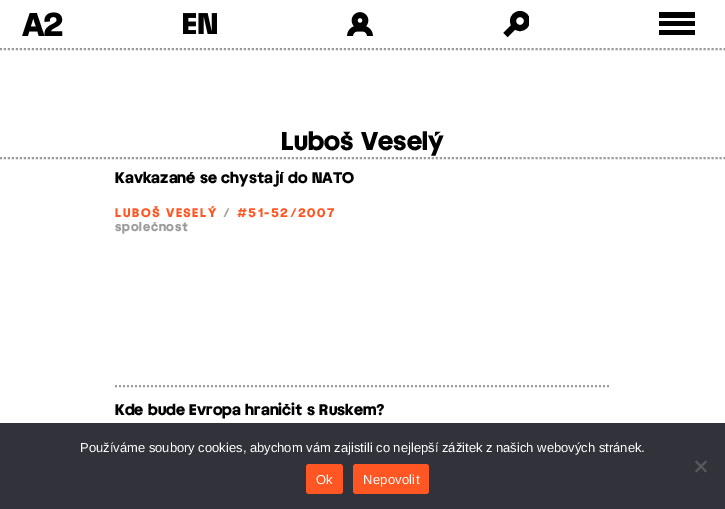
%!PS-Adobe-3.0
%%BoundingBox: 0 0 725 509
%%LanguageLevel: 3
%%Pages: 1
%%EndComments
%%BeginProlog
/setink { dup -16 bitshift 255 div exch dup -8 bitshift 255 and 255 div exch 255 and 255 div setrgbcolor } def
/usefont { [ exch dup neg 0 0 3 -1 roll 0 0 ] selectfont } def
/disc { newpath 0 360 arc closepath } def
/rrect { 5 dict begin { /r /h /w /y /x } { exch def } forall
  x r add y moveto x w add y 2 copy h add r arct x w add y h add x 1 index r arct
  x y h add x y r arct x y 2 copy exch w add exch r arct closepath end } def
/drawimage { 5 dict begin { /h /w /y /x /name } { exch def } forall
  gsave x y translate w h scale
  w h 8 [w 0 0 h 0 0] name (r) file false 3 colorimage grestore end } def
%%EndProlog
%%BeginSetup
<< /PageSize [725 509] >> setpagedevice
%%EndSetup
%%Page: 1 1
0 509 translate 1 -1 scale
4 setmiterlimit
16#FFFFFF setink
0 0 725 509 rectfill
16#9B9B9B setink
2 setlinewidth
[2 2] 0 setdash
0 49 moveto 725 49 lineto stroke
/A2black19-Black 32 usefont
16#000000 setink
22 36 moveto -2 0 (A2) ashow
(img1.raw) 183 13 34 21 drawimage
(img2.raw) 347 12 26 24 drawimage
gsave
503 11 26 26 rectclip
5.9 setlinewidth
[] 0 setdash
520 21 7 disc stroke
grestore
5.9 setlinewidth
[] 0 setdash
515 25.5 moveto 505.5 35 lineto stroke
[
    [659 12 36 6 16#000000]
    [659 21 36 5 16#000000]
    [659 30 36 5 16#000000]
] { aload pop setink rectfill } forall
16#9B9B9B setink
2 setlinewidth
[2 2] 0 setdash
0 158 moveto 725 158 lineto stroke
/A2black19-Black 25 usefont
16#000000 setink
281 150 moveto (Luboš Veselý) show
/A2black19-Black 15 usefont
115 183 moveto (Kavkazané se chystají do NATO) show
/A2black19-Black 12 usefont
16#FF5624 setink
115 217 moveto 1.5 0 (LUBOŠ VESELÝ) ashow
16#9B9B9B setink
223 217 moveto (/) show
16#FF5624 setink
237 217 moveto 1.5 0 (#51-52/2007) ashow
16#9B9B9B setink
115 231 moveto 0.75 0 (společnost) ashow
115 386 moveto 611 386 lineto stroke
/A2black19-Black 15 usefont
16#000000 setink
115 415 moveto (Kde bude Evropa hraničit s Ruskem?) show
16#32323A setink
0 423 725 86 rectfill
/LiberationSans-Regular 13 usefont
16#FFFFFF setink
80 452 moveto (Používáme soubory cookies, abychom vám zajistili co nejlepší zážitek z našich webových stránek.) show
16#59595D setink
705.5 460.5 moveto 707 462 lineto 696.5 472.5 lineto 695 471 lineto closepath fill
695 462 moveto 696.5 460.5 lineto 707 471 lineto 705.5 472.5 lineto closepath fill
16#FF5624 setink
306 464 37 30 3 rrect fill
16#FFFFFF setink
316 484 moveto 0.25 0 (Ok) ashow
16#FF5624 setink
353 464 76 30 3 rrect fill
16#FFFFFF setink
363 484 moveto 0.25 0 (Nepovolit) ashow
showpage
%%EOF
